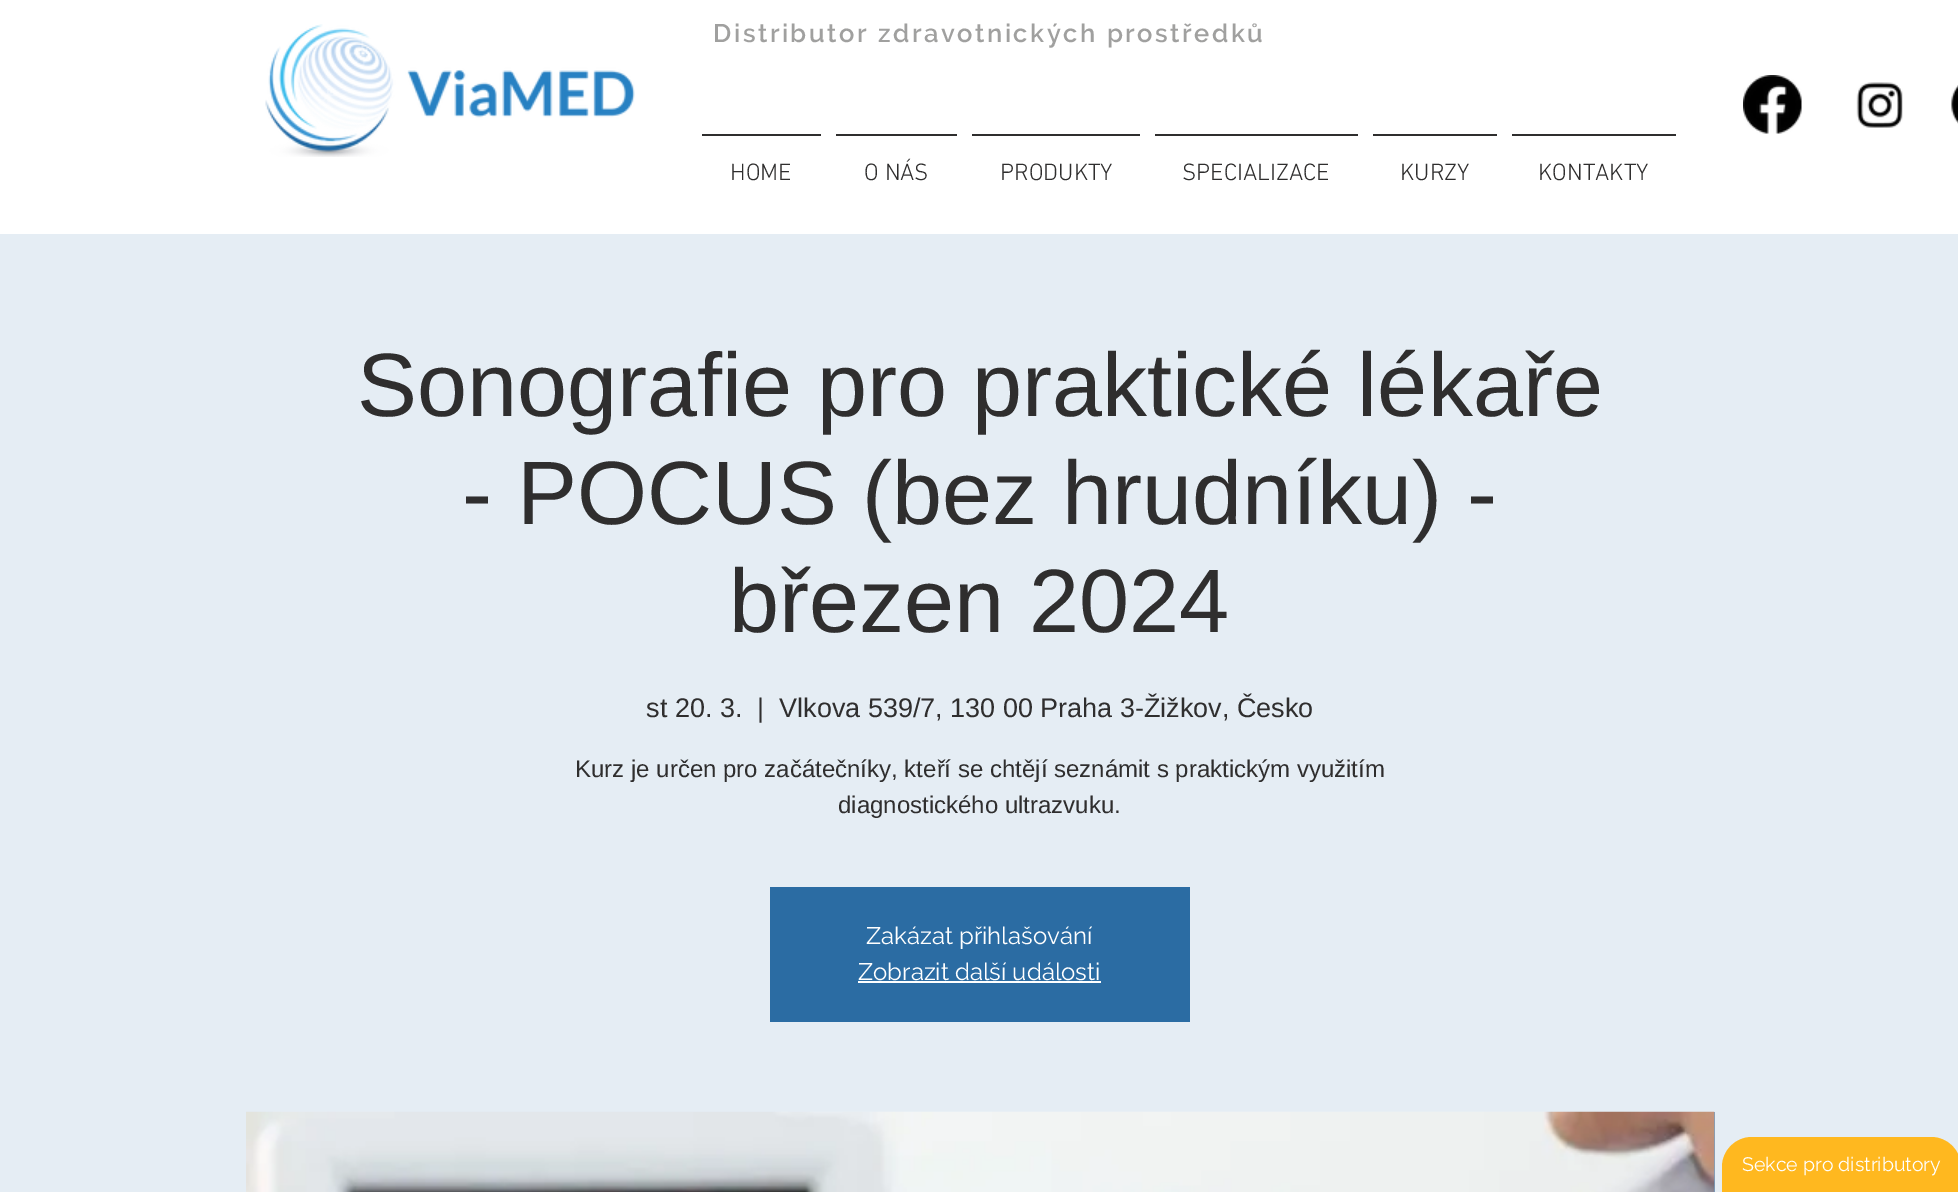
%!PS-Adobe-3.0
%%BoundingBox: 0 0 1958 1192
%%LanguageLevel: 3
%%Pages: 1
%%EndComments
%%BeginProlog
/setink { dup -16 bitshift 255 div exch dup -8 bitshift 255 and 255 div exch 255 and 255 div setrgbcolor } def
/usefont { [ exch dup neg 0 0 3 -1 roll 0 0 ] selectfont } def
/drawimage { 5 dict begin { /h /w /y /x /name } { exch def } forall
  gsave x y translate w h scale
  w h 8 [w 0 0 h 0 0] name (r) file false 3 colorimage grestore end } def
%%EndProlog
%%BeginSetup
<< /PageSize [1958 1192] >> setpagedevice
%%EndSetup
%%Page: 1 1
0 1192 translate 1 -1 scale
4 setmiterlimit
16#FFFFFF setink
0 0 1958 1192 rectfill
(img1.raw) 265 24 370 133 drawimage
/Raleway-SemiBold 25.5 usefont
16#A0A09F setink
713 42 moveto 2.55 0 (Distributor zdravotnických prostředků) ashow
(img2.raw) 1743 75 59 59 drawimage
(img3.raw) 1856 82 47 46 drawimage
(img4.raw) 1951 85 7 39 drawimage
16#2F2E2E setink
702 134 119 2 rectfill
/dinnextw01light-Light 24 usefont
730 180 moveto (HOME) show
836 134 121 2 rectfill
864 180 moveto (O NÁS) show
972 134 168 2 rectfill
1000 180 moveto (PRODUKTY) show
1155 134 203 2 rectfill
1182 180 moveto (SPECIALIZACE) show
1373 134 124 2 rectfill
1400 180 moveto (KURZY) show
1512 134 164 2 rectfill
1538 180 moveto (KONTAKTY) show
16#E5EDF4 setink
0 234 1958 958 rectfill
/LiberationSans-Regular 90 usefont
16#2F2E2E setink
[
    [(Sonografie pro praktické lékaře) 357 416]
    [(- POCUS \(bez hrudníku\) -) 462 524]
    [(březen 2024) 729 632]
] { aload pop moveto show } forall
/LiberationSans-Regular 27 usefont
[
    [(st 20. 3.) 646 717]
    [(|) 757 717]
    [(Vlkova 539/7, 130 00 Praha 3-Žižkov, Česko) 779 717]
] { aload pop moveto show } forall
/LiberationSans-Regular 24 usefont
575 777 moveto (Kurz je určen pro začátečníky, kteří se chtějí seznámit s praktickým využitím) show
838 813 moveto (diagnostického ultrazvuku.) show
16#2B6CA3 setink
770 887 420 135 rectfill
/Raleway-Regular 24 usefont
16#FFFFFF setink
866 944 moveto (Zakázat přihlašování) show
858 980 moveto (Zobrazit další události) show
858 981 243 2 rectfill
16#7AA1C2 setink
1714 1112 1 80 rectfill
(img5.raw) 246 1111 1469 81 drawimage
16#FFB81F setink
1752 1137 moveto 1931 1137 lineto 1947.5 1137 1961 1150.5 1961 1167 curveto 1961 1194 lineto 1722 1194 lineto 1722 1167 lineto 1722 1150.5 1735.5 1137 1752 1137 curveto closepath fill
/Raleway-Regular 19.5 usefont
16#FFFFFF setink
1742 1171 moveto (Sekce pro distributory) show
showpage
%%EOF
